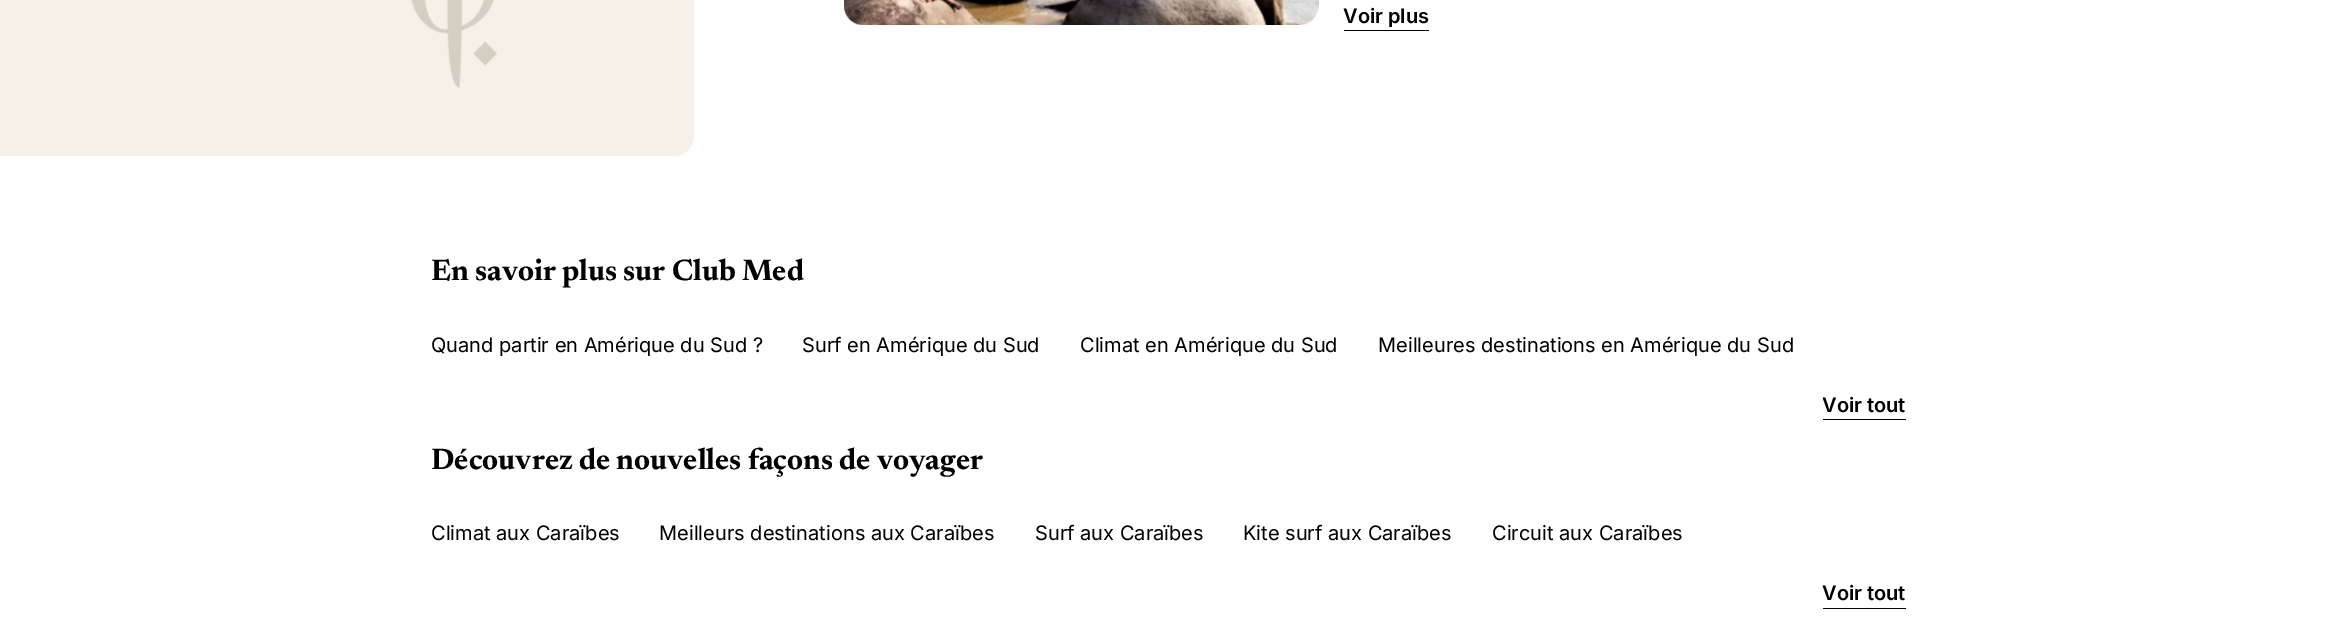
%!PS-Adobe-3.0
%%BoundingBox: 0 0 2336 621
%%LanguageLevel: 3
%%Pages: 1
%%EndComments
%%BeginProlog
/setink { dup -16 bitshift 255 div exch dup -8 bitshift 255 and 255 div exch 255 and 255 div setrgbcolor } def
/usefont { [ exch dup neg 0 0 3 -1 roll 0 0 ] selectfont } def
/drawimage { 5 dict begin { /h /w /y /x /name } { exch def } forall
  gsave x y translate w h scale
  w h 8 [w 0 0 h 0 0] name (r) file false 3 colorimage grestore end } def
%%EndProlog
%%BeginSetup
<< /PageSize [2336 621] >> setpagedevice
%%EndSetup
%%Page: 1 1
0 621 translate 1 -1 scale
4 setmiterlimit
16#FFFFFF setink
0 0 2336 621 rectfill
16#F7F0E9 setink
0 -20 moveto 674 -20 lineto 685 -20 694 -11 694 0 curveto 694 136 lineto 694 147 685 156 674 156 curveto 0 156 lineto closepath fill
(img1.raw) 411 0 86 88 drawimage
(img2.raw) 844 0 475 25 drawimage
16#000000 setink
1344 30 85 1 rectfill
/Inter-SemiBold 20 usefont
1343 23 moveto (Voir plus) show
/Newsreader-Bold 30 usefont
431 280 moveto (En savoir plus sur Club Med) show
/Inter-Regular 20 usefont
[
    [(Quand partir en Amérique du Sud ?) 431 352]
    [(Surf en Amérique du Sud) 802 352]
    [(Climat en Amérique du Sud) 1080 352]
    [(Meilleures destinations en Amérique du Sud) 1378 352]
] { aload pop moveto show } forall
1823 419 83 1 rectfill
/Inter-SemiBold 20 usefont
1822 412 moveto (Voir tout) show
/Newsreader-Bold 30 usefont
431 469 moveto (Découvrez de nouvelles façons de voyager) show
/Inter-Regular 20 usefont
[
    [(Climat aux Caraïbes) 431 540]
    [(Meilleurs destinations aux Caraïbes) 659 540]
    [(Surf aux Caraïbes) 1035 540]
    [(Kite surf aux Caraïbes) 1243 540]
    [(Circuit aux Caraïbes) 1492 540]
] { aload pop moveto show } forall
1823 608 83 1 rectfill
/Inter-SemiBold 20 usefont
1822 600 moveto (Voir tout) show
showpage
%%EOF
